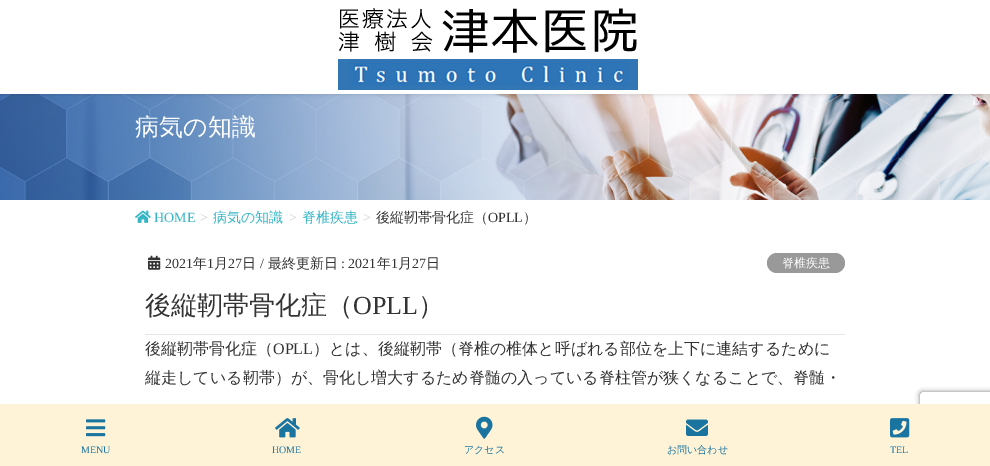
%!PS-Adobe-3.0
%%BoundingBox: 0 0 990 466
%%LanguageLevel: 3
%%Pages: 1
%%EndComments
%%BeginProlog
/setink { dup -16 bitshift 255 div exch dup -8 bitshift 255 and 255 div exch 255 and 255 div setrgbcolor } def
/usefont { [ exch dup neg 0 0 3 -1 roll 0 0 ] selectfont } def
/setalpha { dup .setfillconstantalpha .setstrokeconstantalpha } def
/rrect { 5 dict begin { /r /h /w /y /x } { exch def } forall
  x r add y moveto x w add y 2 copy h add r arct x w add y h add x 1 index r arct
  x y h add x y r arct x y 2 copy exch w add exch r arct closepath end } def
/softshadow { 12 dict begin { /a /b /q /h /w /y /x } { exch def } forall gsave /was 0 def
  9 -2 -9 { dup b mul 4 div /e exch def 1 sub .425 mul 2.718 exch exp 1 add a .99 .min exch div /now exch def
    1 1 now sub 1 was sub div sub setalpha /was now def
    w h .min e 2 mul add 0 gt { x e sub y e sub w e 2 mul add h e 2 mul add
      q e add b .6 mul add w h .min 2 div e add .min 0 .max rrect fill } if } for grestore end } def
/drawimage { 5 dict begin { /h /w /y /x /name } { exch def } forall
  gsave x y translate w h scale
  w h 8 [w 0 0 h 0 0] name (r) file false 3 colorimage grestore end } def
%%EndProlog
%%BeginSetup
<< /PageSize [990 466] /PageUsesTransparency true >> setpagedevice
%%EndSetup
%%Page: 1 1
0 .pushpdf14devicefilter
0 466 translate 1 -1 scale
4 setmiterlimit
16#FFFFFF setink
0 0 990 466 rectfill
(img2.raw) 0 94 990 106 drawimage
16#000000 setink
0 1 990 94 0 1.5 0.1 softshadow
16#FFFFFF setink
0 0 990 94 rectfill
(img1.raw) 338 8 300 82 drawimage
/WenQuanYiZenHei-Medium 24 usefont
135 135 moveto (病気の知識) show
(img3.raw) 135 210 16 13 drawimage
/LiberationSerif-Regular 14 usefont
16#35B5C6 setink
154 222 moveto (HOME) show
16#CCCCCC setink
200 222 moveto (>) show
/WenQuanYiZenHei-Medium 14 usefont
16#35B5C6 setink
213 222 moveto (病気の知識) show
/LiberationSerif-Regular 14 usefont
16#CCCCCC setink
289 222 moveto (>) show
/WenQuanYiZenHei-Medium 14 usefont
16#35B5C6 setink
302 222 moveto (脊椎疾患) show
/LiberationSerif-Regular 14 usefont
16#CCCCCC setink
363 222 moveto (>) show
/WenQuanYiZenHei-Medium 14 usefont
16#333333 setink
376 222 moveto (後縦靭帯骨化症（) show
/LiberationSerif-Regular 14 usefont
488 222 moveto (OPLL) show
/WenQuanYiZenHei-Medium 14 usefont
523 222 moveto (）) show
16#E5E5E5 setink
145 334 700 1 rectfill
(img4.raw) 148 255 13 15 drawimage
/LiberationSerif-Regular 14 usefont
16#333333 setink
165 268 moveto (2021) show
/WenQuanYiZenHei-Medium 14 usefont
193 268 moveto (年) show
/LiberationSerif-Regular 14 usefont
207 268 moveto (1) show
/WenQuanYiZenHei-Medium 14 usefont
214 268 moveto (月) show
/LiberationSerif-Regular 14 usefont
228 268 moveto (27) show
/WenQuanYiZenHei-Medium 14 usefont
242 268 moveto (日) show
/LiberationSerif-Regular 14 usefont
260 268 moveto (/) show
/WenQuanYiZenHei-Medium 14 usefont
268 268 moveto (最終更新日) show
/LiberationSerif-Regular 14 usefont
341 268 moveto (: 2021) show
/WenQuanYiZenHei-Medium 14 usefont
377 268 moveto (年) show
/LiberationSerif-Regular 14 usefont
391 268 moveto (1) show
/WenQuanYiZenHei-Medium 14 usefont
398 268 moveto (月) show
/LiberationSerif-Regular 14 usefont
412 268 moveto (27) show
/WenQuanYiZenHei-Medium 14 usefont
426 268 moveto (日) show
16#999999 setink
767 253 78 20 10 rrect fill
/WenQuanYiZenHei-Medium 12 usefont
16#FFFFFF setink
782 267 moveto (脊椎疾患) show
/WenQuanYiZenHei-Medium 26 usefont
16#333333 setink
145 314 moveto (後縦靭帯骨化症（) show
/LiberationSerif-Regular 26 usefont
353 314 moveto (OPLL) show
/WenQuanYiZenHei-Medium 26 usefont
418 314 moveto (）) show
/WenQuanYiZenHei-Medium 16 usefont
145 354 moveto (後縦靭帯骨化症（) show
/LiberationSerif-Regular 16 usefont
273 354 moveto (OPLL) show
/WenQuanYiZenHei-Medium 16 usefont
313 354 moveto (）とは、後縦靭帯（脊椎の椎体と呼ばれる部位を上下に連結するために) show
145 383 moveto (縦走している靭帯）が、骨化し増大するため脊髄の入っている脊柱管が狭くなることで、脊髄・) show
gsave
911 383 moveto 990 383 lineto 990 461 lineto 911 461 lineto closepath 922 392 moveto 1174 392 lineto 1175 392 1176 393 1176 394 curveto 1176 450 lineto 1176 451 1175 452 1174 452 curveto 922 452 lineto 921 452 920 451 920 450 curveto 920 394 lineto 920 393 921 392 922 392 curveto closepath eoclip newpath
16#808080 setink
920 392 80 60 2 2.5 1 softshadow
grestore
16#FFF3D7 setink
0 404 990 62 rectfill
(img5.raw) 86 419 20 18 drawimage
/LiberationSerif-Regular 10 usefont
16#1A749F setink
81 453 moveto (MENU) show
(img6.raw) 275 418 25 20 drawimage
272 453 moveto (HOME) show
(img7.raw) 476 416 17 23 drawimage
/WenQuanYiZenHei-Medium 10 usefont
464 453 moveto (アクセス) show
(img8.raw) 686 419 22 17 drawimage
667 453 moveto (お問い合わせ) show
(img9.raw) 890 418 20 20 drawimage
/LiberationSerif-Regular 10 usefont
890 453 moveto (TEL) show
.poppdf14devicefilter showpage
%%EOF
